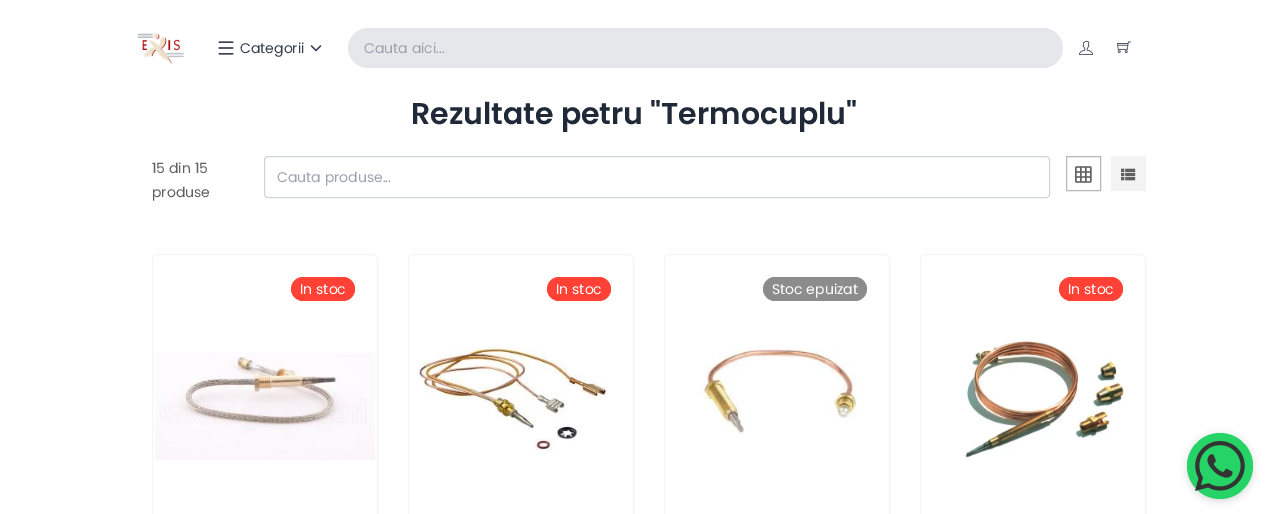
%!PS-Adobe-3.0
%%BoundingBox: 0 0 1268 514
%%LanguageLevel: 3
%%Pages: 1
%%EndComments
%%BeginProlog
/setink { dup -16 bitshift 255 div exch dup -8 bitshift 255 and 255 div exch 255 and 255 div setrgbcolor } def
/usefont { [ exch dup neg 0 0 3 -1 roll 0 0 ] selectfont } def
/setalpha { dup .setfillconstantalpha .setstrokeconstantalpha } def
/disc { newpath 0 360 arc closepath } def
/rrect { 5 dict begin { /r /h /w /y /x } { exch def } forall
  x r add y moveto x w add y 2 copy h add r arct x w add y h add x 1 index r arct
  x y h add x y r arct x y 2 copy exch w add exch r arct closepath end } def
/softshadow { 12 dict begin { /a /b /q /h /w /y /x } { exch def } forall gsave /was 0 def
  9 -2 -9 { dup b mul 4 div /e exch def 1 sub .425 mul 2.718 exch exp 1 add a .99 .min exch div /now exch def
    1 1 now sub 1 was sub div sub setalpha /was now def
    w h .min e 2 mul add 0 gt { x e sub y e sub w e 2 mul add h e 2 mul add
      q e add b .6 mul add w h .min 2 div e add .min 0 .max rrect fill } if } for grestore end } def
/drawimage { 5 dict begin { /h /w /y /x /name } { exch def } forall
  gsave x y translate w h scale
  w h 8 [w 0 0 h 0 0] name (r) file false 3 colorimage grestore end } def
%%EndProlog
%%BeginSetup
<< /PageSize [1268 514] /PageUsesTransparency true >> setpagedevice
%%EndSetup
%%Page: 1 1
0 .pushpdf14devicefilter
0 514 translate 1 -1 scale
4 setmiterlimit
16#FFFFFF setink
0 0 1268 514 rectfill
(img1.raw) 137 33 47 31 drawimage
(img2.raw) 218 41 16 14 drawimage
/Poppins-Regular 14 usefont
16#374151 setink
240 53 moveto (Categorii) show
1.3 setlinewidth
1 setlinecap
1 setlinejoin
320.5 46 moveto 316 50.5 lineto 311.5 46 lineto stroke
16#E5E7EB setink
348 28 715 40 20 rrect fill
16#9CA3AF setink
364 53 moveto (Cauta aici...) show
(img3.raw) 1079 40 14 15 drawimage
(img4.raw) 1117 41 14 12 drawimage
/Poppins-SemiBold 30 usefont
16#1F2937 setink
411 124 moveto (Rezultate petru "Termocuplu") show
/Poppins-Regular 14 usefont
16#606060 setink
152 173 moveto (15 din 15) show
152 197 moveto (produse) show
16#D1D5DB setink
1 setlinewidth
0 setlinecap
0 setlinejoin
264.5 156.5 785 41 3.5 rrect stroke
16#9CA3AF setink
277 182 moveto (Cauta produse...) show
16#B7B7B7 setink
1066.5 156.5 34 34 rectstroke
(img5.raw) 1075 166 17 17 drawimage
16#F3F3F3 setink
1111 156 35 35 rectfill
(img6.raw) 1121 168 15 13 drawimage
16#F5F5F5 setink
152.5 254.5 225 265 4.5 rrect stroke
16#FF4136 setink
291 277 64 24 12 rrect fill
16#FFFFFF setink
300 294 moveto (In stoc) show
(img7.raw) 155 352 220 108 drawimage
16#F5F5F5 setink
408.5 254.5 225 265 4.5 rrect stroke
16#FF4136 setink
547 277 64 24 12 rrect fill
16#FFFFFF setink
556 294 moveto (In stoc) show
(img8.raw) 417 347 190 105 drawimage
16#F5F5F5 setink
664.5 254.5 225 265 4.5 rrect stroke
16#8C8C8C setink
763 277 104 24 12 rrect fill
16#FFFFFF setink
772 294 moveto (Stoc epuizat) show
(img9.raw) 700 347 158 87 drawimage
16#F5F5F5 setink
920.5 254.5 225 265 4.5 rrect stroke
16#FF4136 setink
1059 277 64 24 12 rrect fill
16#FFFFFF setink
1068 294 moveto (In stoc) show
(img10.raw) 965 340 159 118 drawimage
16#000000 setink
1187 435 66 66 33 4 0.15 softshadow
16#25D366 setink
1220 466 33 disc fill
(img11.raw) 1195 441 50 50 drawimage
.poppdf14devicefilter showpage
%%EOF
